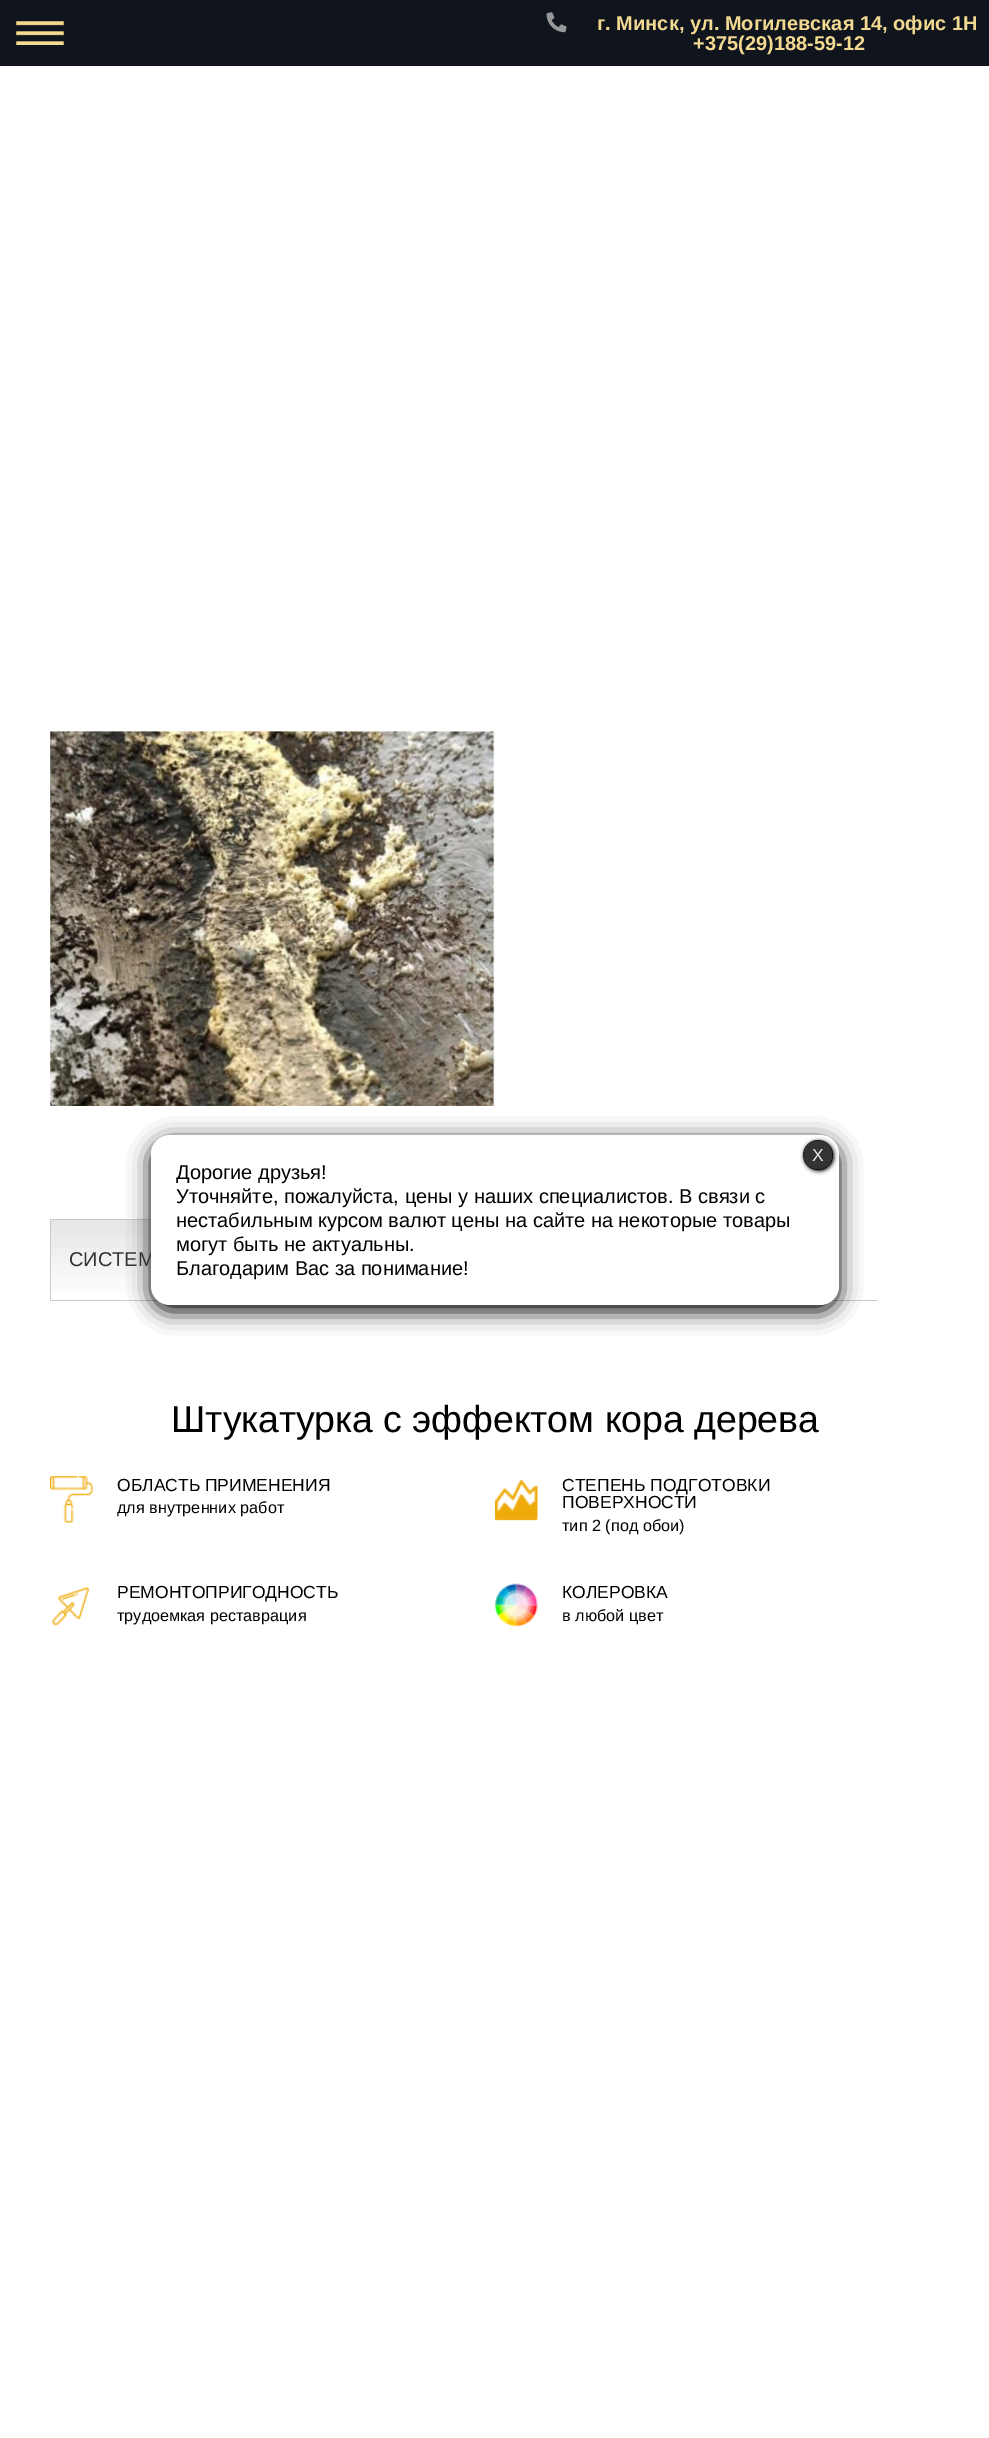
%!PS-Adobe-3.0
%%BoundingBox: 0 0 989 2438
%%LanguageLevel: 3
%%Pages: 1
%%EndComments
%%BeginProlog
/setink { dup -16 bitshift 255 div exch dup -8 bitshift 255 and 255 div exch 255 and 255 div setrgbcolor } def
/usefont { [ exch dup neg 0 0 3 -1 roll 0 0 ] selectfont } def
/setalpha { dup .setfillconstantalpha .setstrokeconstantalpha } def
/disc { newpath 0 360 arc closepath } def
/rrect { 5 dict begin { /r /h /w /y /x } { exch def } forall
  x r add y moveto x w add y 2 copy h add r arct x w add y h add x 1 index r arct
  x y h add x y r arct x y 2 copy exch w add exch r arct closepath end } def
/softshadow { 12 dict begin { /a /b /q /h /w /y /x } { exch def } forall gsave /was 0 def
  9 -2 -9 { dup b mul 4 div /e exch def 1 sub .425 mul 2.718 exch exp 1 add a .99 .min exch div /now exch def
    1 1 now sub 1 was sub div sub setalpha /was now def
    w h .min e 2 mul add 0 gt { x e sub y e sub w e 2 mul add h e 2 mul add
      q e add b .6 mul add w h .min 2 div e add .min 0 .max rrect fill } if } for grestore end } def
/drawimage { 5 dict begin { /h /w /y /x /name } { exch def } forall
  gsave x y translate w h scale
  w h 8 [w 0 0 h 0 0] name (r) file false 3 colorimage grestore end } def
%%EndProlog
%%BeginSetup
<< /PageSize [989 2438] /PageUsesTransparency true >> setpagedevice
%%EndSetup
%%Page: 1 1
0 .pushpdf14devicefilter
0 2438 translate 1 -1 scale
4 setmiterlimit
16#FFFFFF setink
0 0 989 2438 rectfill
16#10151D setink
0 0 989 66 rectfill
(img1.raw) 16 21 48 24 drawimage
(img2.raw) 546 12 21 21 drawimage
/LiberationSans-Bold 20 usefont
16#F2D992 setink
597 30 moveto (г. Минск, ул. Могилевская 14, офис 1H) show
693 50 moveto (+375\(29\)188-59-12) show
16#CBCBCD setink
50 1300 828 1 rectfill
50 1219 101 1 rectfill
gsave 51 1220 moveto 158 1220 lineto 158 1292 lineto 51 1292 lineto closepath clip newpath
<< /ShadingType 2 /ColorSpace /DeviceRGB /Coords [119 1300 119 1220] /Extend [true true] /Function << /FunctionType 2 /Domain [0 1] /C0 [1 1 1] /C1 [0.902 0.902 0.902] /N 1 >> >> shfill grestore
16#000000 setink
151 1141 688 170 19 11 1 softshadow
/LiberationSans-Regular 20 usefont
16#333333 setink
69 1266 moveto (СИСТЕМ) show
16#FFFFFF setink
151 1135 688 170 19 rrect fill
gsave
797 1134 moveto 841 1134 lineto 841 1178 lineto 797 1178 lineto closepath 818 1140 moveto 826.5 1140 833 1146.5 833 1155 curveto 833 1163.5 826.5 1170 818 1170 curveto 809.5 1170 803 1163.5 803 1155 curveto 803 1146.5 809.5 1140 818 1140 curveto closepath eoclip newpath
16#000000 setink
804 1141 30 30 15 2 1 softshadow
grestore
0.8 setalpha
16#000000 setink
818 1155 15 disc fill
/LiberationSans-Regular 17.5 usefont
1 setalpha
16#EBEBEB setink
812 1161 moveto (X) show
/LiberationSans-Regular 20 usefont
16#000000 setink
[
    [(Дорогие друзья!) 176 1179]
    [(Уточняйте, пожалуйста, цены у наших специалистов. В связи с) 176 1203]
    [(нестабильным курсом валют цены на сайте на некоторые товары) 176 1227]
    [(могут быть не актуальны.) 176 1251]
    [(Благодарим Вас за понимание!) 176 1275]
] { aload pop moveto show } forall
(img3.raw) 50 731 445 375 drawimage
16#CBCBCD setink
50 1219 1 81 rectfill
/LiberationSans-Regular 37.5 usefont
16#000000 setink
171 1432 moveto (Штукатурка с эффектом кора дерева) show
(img4.raw) 50 1476 43 47 drawimage
/LiberationSans-Regular 17.5 usefont
117 1491 moveto (ОБЛАСТЬ ПРИМЕНЕНИЯ) show
/LiberationSans-Regular 16.25 usefont
117 1513 moveto (для внутренних работ) show
(img5.raw) 495 1479 43 42 drawimage
/LiberationSans-Regular 17.5 usefont
562 1491 moveto (СТЕПЕНЬ ПОДГОТОВКИ) show
562 1508 moveto (ПОВЕРХНОСТИ) show
/LiberationSans-Regular 16.25 usefont
562 1531 moveto (тип 2 \(под обои\)) show
(img6.raw) 52 1587 37 39 drawimage
/LiberationSans-Regular 17.5 usefont
117 1598 moveto (РЕМОНТОПРИГОДНОСТЬ) show
/LiberationSans-Regular 16.25 usefont
117 1621 moveto (трудоемкая реставрация) show
(img7.raw) 495 1583 43 44 drawimage
/LiberationSans-Regular 17.5 usefont
562 1598 moveto (КОЛЕРОВКА) show
/LiberationSans-Regular 16.25 usefont
562 1621 moveto (в любой цвет) show
.poppdf14devicefilter showpage
%%EOF
